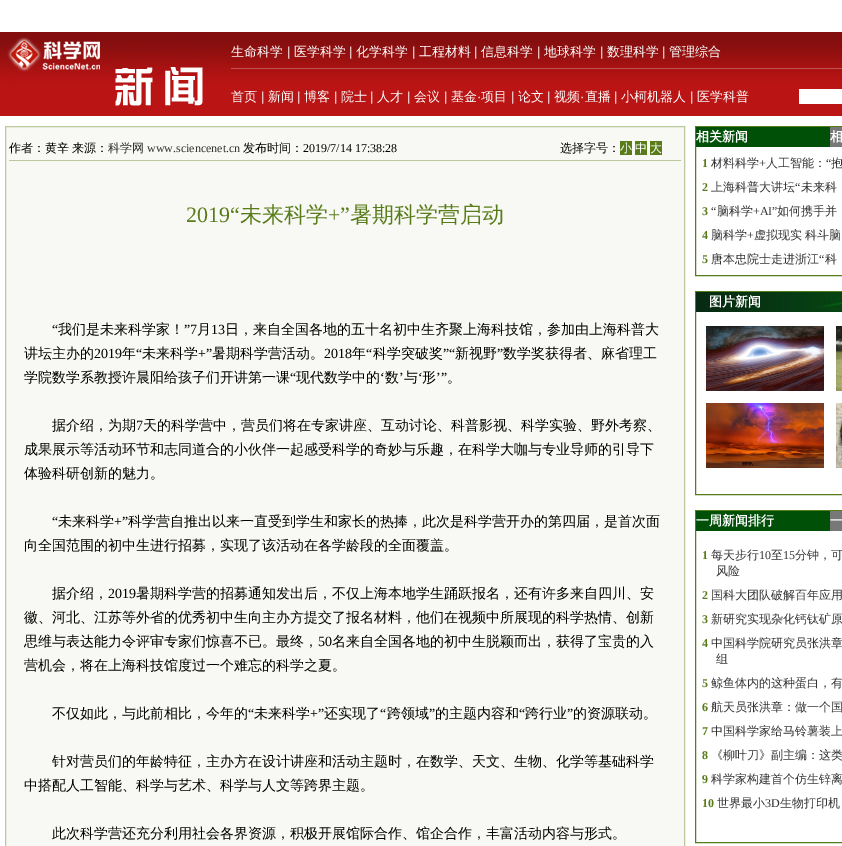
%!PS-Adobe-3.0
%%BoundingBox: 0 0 842 846
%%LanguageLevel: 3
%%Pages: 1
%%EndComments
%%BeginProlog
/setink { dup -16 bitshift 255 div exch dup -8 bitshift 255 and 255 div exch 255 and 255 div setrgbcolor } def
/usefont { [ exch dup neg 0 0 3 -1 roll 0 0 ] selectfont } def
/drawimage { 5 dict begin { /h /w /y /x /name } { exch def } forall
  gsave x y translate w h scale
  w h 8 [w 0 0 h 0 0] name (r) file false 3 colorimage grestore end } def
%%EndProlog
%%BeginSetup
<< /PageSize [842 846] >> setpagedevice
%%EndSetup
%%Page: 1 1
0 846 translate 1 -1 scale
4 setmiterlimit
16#FFFFFF setink
0 0 842 846 rectfill
(img1.raw) 0 32 842 84 drawimage
(img2.raw) 7 37 196 72 drawimage
16#BD5354 setink
231 68 611 1 rectfill
/WenQuanYiZenHei-Medium 13 usefont
16#FFFFFF setink
231 56 moveto (生命科学) show
/LiberationSans-Regular 13 usefont
287 56 moveto (|) show
/WenQuanYiZenHei-Medium 13 usefont
294 56 moveto (医学科学) show
/LiberationSans-Regular 13 usefont
349 56 moveto (|) show
/WenQuanYiZenHei-Medium 13 usefont
356 56 moveto (化学科学) show
/LiberationSans-Regular 13 usefont
412 56 moveto (|) show
/WenQuanYiZenHei-Medium 13 usefont
419 56 moveto (工程材料) show
/LiberationSans-Regular 13 usefont
474 56 moveto (|) show
/WenQuanYiZenHei-Medium 13 usefont
481 56 moveto (信息科学) show
/LiberationSans-Regular 13 usefont
537 56 moveto (|) show
/WenQuanYiZenHei-Medium 13 usefont
544 56 moveto (地球科学) show
/LiberationSans-Regular 13 usefont
600 56 moveto (|) show
/WenQuanYiZenHei-Medium 13 usefont
607 56 moveto (数理科学) show
/LiberationSans-Regular 13 usefont
662 56 moveto (|) show
/WenQuanYiZenHei-Medium 13 usefont
669 56 moveto (管理综合) show
231 101 moveto (首页) show
/LiberationSans-Regular 13 usefont
261 101 moveto (|) show
/WenQuanYiZenHei-Medium 13 usefont
268 101 moveto (新闻) show
/LiberationSans-Regular 13 usefont
297 101 moveto (|) show
/WenQuanYiZenHei-Medium 13 usefont
304 101 moveto (博客) show
/LiberationSans-Regular 13 usefont
334 101 moveto (|) show
/WenQuanYiZenHei-Medium 13 usefont
341 101 moveto (院士) show
/LiberationSans-Regular 13 usefont
370 101 moveto (|) show
/WenQuanYiZenHei-Medium 13 usefont
377 101 moveto (人才) show
/LiberationSans-Regular 13 usefont
407 101 moveto (|) show
/WenQuanYiZenHei-Medium 13 usefont
414 101 moveto (会议) show
/LiberationSans-Regular 13 usefont
444 101 moveto (|) show
/WenQuanYiZenHei-Medium 13 usefont
451 101 moveto (基金) show
/LiberationSans-Regular 13 usefont
477 101 moveto (·) show
/WenQuanYiZenHei-Medium 13 usefont
481 101 moveto (项目) show
/LiberationSans-Regular 13 usefont
511 101 moveto (|) show
/WenQuanYiZenHei-Medium 13 usefont
518 101 moveto (论文) show
/LiberationSans-Regular 13 usefont
547 101 moveto (|) show
/WenQuanYiZenHei-Medium 13 usefont
554 101 moveto (视频) show
/LiberationSans-Regular 13 usefont
580 101 moveto (·) show
/WenQuanYiZenHei-Medium 13 usefont
585 101 moveto (直播) show
/LiberationSans-Regular 13 usefont
614 101 moveto (|) show
/WenQuanYiZenHei-Medium 13 usefont
621 101 moveto (小柯机器人) show
/LiberationSans-Regular 13 usefont
690 101 moveto (|) show
/WenQuanYiZenHei-Medium 13 usefont
697 101 moveto (医学科普) show
799 89 43 15 rectfill
16#F8F9F4 setink
5.5 126.5 moveto 684.5 126.5 lineto 684.5 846.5 lineto 5.5 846.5 lineto closepath gsave fill grestore
16#BBC89B setink
stroke
9 160 672 1 rectfill
/WenQuanYiZenHei-Medium 12 usefont
16#000000 setink
9 152 moveto -1 0 32 (作者：黄辛 来源：) widthshow
16#333333 setink
108 152 moveto (科学网) show
/LiberationSerif-Regular 12 usefont
147 152 moveto (www.sciencenet.cn) show
/WenQuanYiZenHei-Medium 12 usefont
16#000000 setink
243 152 moveto (发布时间：) show
/LiberationSerif-Regular 12 usefont
303 152 moveto (2019/7/14 17:38:28) show
/WenQuanYiZenHei-Medium 12 usefont
560 152 moveto (选择字号：) show
16#587C19 setink
620 141 12 14 rectfill
16#FFFFFF setink
620 152 moveto (小) show
16#587C19 setink
635 141 12 14 rectfill
16#FFFFFF setink
635 152 moveto (中) show
16#587C19 setink
650 141 12 14 rectfill
16#FFFFFF setink
650 152 moveto (大) show
/LiberationSerif-Regular 22 usefont
16#587C19 setink
186 222 moveto (2019“) show
/WenQuanYiZenHei-Medium 22 usefont
240 222 moveto (未来科学) show
/LiberationSerif-Regular 22 usefont
328 222 moveto (+”) show
/WenQuanYiZenHei-Medium 22 usefont
350 222 moveto (暑期科学营启动) show
/LiberationSerif-Regular 14 usefont
16#000000 setink
52 334 moveto (“) show
/WenQuanYiZenHei-Medium 14 usefont
58 334 moveto (我们是未来科学家！) show
/LiberationSerif-Regular 14 usefont
184 334 moveto (”7) show
/WenQuanYiZenHei-Medium 14 usefont
197 334 moveto (月) show
/LiberationSerif-Regular 14 usefont
211 334 moveto (13) show
/WenQuanYiZenHei-Medium 14 usefont
225 334 moveto (日，来自全国各地的五十名初中生齐聚上海科技馆，参加由上海科普大) show
24 358 moveto (讲坛主办的) show
/LiberationSerif-Regular 14 usefont
94 358 moveto (2019) show
/WenQuanYiZenHei-Medium 14 usefont
122 358 moveto (年) show
/LiberationSerif-Regular 14 usefont
136 358 moveto (“) show
/WenQuanYiZenHei-Medium 14 usefont
142 358 moveto (未来科学) show
/LiberationSerif-Regular 14 usefont
198 358 moveto (+”) show
/WenQuanYiZenHei-Medium 14 usefont
212 358 moveto (暑期科学营活动。) show
/LiberationSerif-Regular 14 usefont
324 358 moveto (2018) show
/WenQuanYiZenHei-Medium 14 usefont
352 358 moveto (年) show
/LiberationSerif-Regular 14 usefont
366 358 moveto (“) show
/WenQuanYiZenHei-Medium 14 usefont
373 358 moveto (科学突破奖) show
/LiberationSerif-Regular 14 usefont
443 358 moveto (”“) show
/WenQuanYiZenHei-Medium 14 usefont
455 358 moveto (新视野) show
/LiberationSerif-Regular 14 usefont
497 358 moveto (”) show
/WenQuanYiZenHei-Medium 14 usefont
503 358 moveto (数学奖获得者、麻省理工) show
24 382 moveto (学院数学系教授许晨阳给孩子们开讲第一课) show
/LiberationSerif-Regular 14 usefont
290 382 moveto (“) show
/WenQuanYiZenHei-Medium 14 usefont
296 382 moveto (现代数学中的) show
/LiberationSerif-Regular 14 usefont
380 382 moveto (‘) show
/WenQuanYiZenHei-Medium 14 usefont
385 382 moveto (数) show
/LiberationSerif-Regular 14 usefont
399 382 moveto (’) show
/WenQuanYiZenHei-Medium 14 usefont
404 382 moveto (与) show
/LiberationSerif-Regular 14 usefont
418 382 moveto (‘) show
/WenQuanYiZenHei-Medium 14 usefont
422 382 moveto (形) show
/LiberationSerif-Regular 14 usefont
436 382 moveto (’”) show
/WenQuanYiZenHei-Medium 14 usefont
447 382 moveto (。) show
52 430 moveto (据介绍，为期) show
/LiberationSerif-Regular 14 usefont
136 430 moveto (7) show
/WenQuanYiZenHei-Medium 14 usefont
[
    [(天的科学营中，营员们将在专家讲座、互动讨论、科普影视、科学实验、野外考察、) 143 430]
    [(成果展示等活动环节和志同道合的小伙伴一起感受科学的奇妙与乐趣，在科学大咖与专业导师的引导下) 24 454]
    [(体验科研创新的魅力。) 24 478]
] { aload pop moveto show } forall
/LiberationSerif-Regular 14 usefont
52 526 moveto (“) show
/WenQuanYiZenHei-Medium 14 usefont
58 526 moveto (未来科学) show
/LiberationSerif-Regular 14 usefont
114 526 moveto (+”) show
/WenQuanYiZenHei-Medium 14 usefont
[
    [(科学营自推出以来一直受到学生和家长的热捧，此次是科学营开办的第四届，是首次面) 128 526]
    [(向全国范围的初中生进行招募，实现了该活动在各学龄段的全面覆盖。) 24 550]
    [(据介绍，) 52 598]
] { aload pop moveto show } forall
/LiberationSerif-Regular 14 usefont
108 598 moveto (2019) show
/WenQuanYiZenHei-Medium 14 usefont
[
    [(暑期科学营的招募通知发出后，不仅上海本地学生踊跃报名，还有许多来自四川、安) 136 598]
    [(徽、河北、江苏等外省的优秀初中生向主办方提交了报名材料，他们在视频中所展现的科学热情、创新) 24 622]
    [(思维与表达能力令评审专家们惊喜不已。最终，) 24 646]
] { aload pop moveto show } forall
/LiberationSerif-Regular 14 usefont
318 646 moveto (50) show
/WenQuanYiZenHei-Medium 14 usefont
[
    [(名来自全国各地的初中生脱颖而出，获得了宝贵的入) 332 646]
    [(营机会，将在上海科技馆度过一个难忘的科学之夏。) 24 670]
    [(不仅如此，与此前相比，今年的) 52 718]
] { aload pop moveto show } forall
/LiberationSerif-Regular 14 usefont
248 718 moveto (“) show
/WenQuanYiZenHei-Medium 14 usefont
254 718 moveto (未来科学) show
/LiberationSerif-Regular 14 usefont
310 718 moveto (+”) show
/WenQuanYiZenHei-Medium 14 usefont
324 718 moveto (还实现了) show
/LiberationSerif-Regular 14 usefont
380 718 moveto (“) show
/WenQuanYiZenHei-Medium 14 usefont
387 718 moveto (跨领域) show
/LiberationSerif-Regular 14 usefont
429 718 moveto (”) show
/WenQuanYiZenHei-Medium 14 usefont
435 718 moveto (的主题内容和) show
/LiberationSerif-Regular 14 usefont
519 718 moveto (“) show
/WenQuanYiZenHei-Medium 14 usefont
525 718 moveto (跨行业) show
/LiberationSerif-Regular 14 usefont
567 718 moveto (”) show
/WenQuanYiZenHei-Medium 14 usefont
[
    [(的资源联动。) 573 718]
    [(针对营员们的年龄特征，主办方在设计讲座和活动主题时，在数学、天文、生物、化学等基础科学) 52 766]
    [(中搭配人工智能、科学与艺术、科学与人文等跨界主题。) 24 790]
    [(此次科学营还充分利用社会各界资源，积极开展馆际合作、馆企合作，丰富活动内容与形式。) 52 838]
] { aload pop moveto show } forall
16#557D1A setink
695.5 126.5 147 149 rectstroke
16#005007 setink
696 127 134 20 rectfill
/WenQuanYiZenHei-Bold 13 usefont
16#FFFFFF setink
696 141 moveto (相关新闻) show
16#787878 setink
830 127 12 20 rectfill
16#FFFFFF setink
830 141 moveto (相) show
/LiberationSerif-Bold 12 usefont
16#587C19 setink
702 167 moveto (1) show
/WenQuanYiZenHei-Medium 12 usefont
16#333333 setink
711 167 moveto (材料科学) show
/LiberationSerif-Regular 12 usefont
759 167 moveto (+) show
/WenQuanYiZenHei-Medium 12 usefont
766 167 moveto (人工智能：) show
/LiberationSerif-Regular 12 usefont
826 167 moveto (“) show
/WenQuanYiZenHei-Medium 12 usefont
831 167 moveto (抱) show
/LiberationSerif-Bold 12 usefont
16#587C19 setink
702 191 moveto (2) show
/WenQuanYiZenHei-Medium 12 usefont
16#333333 setink
711 191 moveto (上海科普大讲坛) show
/LiberationSerif-Regular 12 usefont
795 191 moveto (“) show
/WenQuanYiZenHei-Medium 12 usefont
801 191 moveto (未来科) show
/LiberationSerif-Bold 12 usefont
16#587C19 setink
702 215 moveto (3) show
/LiberationSerif-Regular 12 usefont
16#333333 setink
711 215 moveto (“) show
/WenQuanYiZenHei-Medium 12 usefont
717 215 moveto (脑科学) show
/LiberationSerif-Regular 12 usefont
753 215 moveto (+AI”) show
/WenQuanYiZenHei-Medium 12 usefont
777 215 moveto (如何携手并) show
/LiberationSerif-Bold 12 usefont
16#587C19 setink
702 239 moveto (4) show
/WenQuanYiZenHei-Medium 12 usefont
16#333333 setink
711 239 moveto (脑科学) show
/LiberationSerif-Regular 12 usefont
747 239 moveto (+) show
/WenQuanYiZenHei-Medium 12 usefont
754 239 moveto -1 0 32 (虚拟现实 科斗脑) widthshow
/LiberationSerif-Bold 12 usefont
16#587C19 setink
702 263 moveto (5) show
/WenQuanYiZenHei-Medium 12 usefont
16#333333 setink
711 263 moveto (唐本忠院士走进浙江) show
/LiberationSerif-Regular 12 usefont
819 263 moveto (“) show
/WenQuanYiZenHei-Medium 12 usefont
825 263 moveto (科) show
16#557D1A setink
695.5 291.5 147 203 rectstroke
(img3.raw) 696 292 146 20 drawimage
/WenQuanYiZenHei-Bold 13 usefont
16#FFFFFF setink
709 306 moveto (图片新闻) show
(img4.raw) 706 326 118 65 drawimage
(img5.raw) 836 326 6 65 drawimage
(img6.raw) 706 403 118 65 drawimage
(img7.raw) 836 403 6 65 drawimage
16#557D1A setink
695.5 510.5 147 332 rectstroke
16#005007 setink
696 511 134 20 rectfill
16#FFFFFF setink
696 525 moveto (一周新闻排行) show
16#787878 setink
830 511 12 20 rectfill
16#FFFFFF setink
830 525 moveto (一) show
/LiberationSerif-Bold 12 usefont
16#587C19 setink
702 559 moveto (1) show
/WenQuanYiZenHei-Medium 12 usefont
16#333333 setink
711 559 moveto (每天步行) show
/LiberationSerif-Regular 12 usefont
759 559 moveto (10) show
/WenQuanYiZenHei-Medium 12 usefont
771 559 moveto (至) show
/LiberationSerif-Regular 12 usefont
783 559 moveto (15) show
/WenQuanYiZenHei-Medium 12 usefont
795 559 moveto (分钟，可) show
716 575 moveto (风险) show
/LiberationSerif-Bold 12 usefont
16#587C19 setink
702 599 moveto (2) show
/WenQuanYiZenHei-Medium 12 usefont
16#333333 setink
711 599 moveto (国科大团队破解百年应用) show
/LiberationSerif-Bold 12 usefont
16#587C19 setink
702 623 moveto (3) show
/WenQuanYiZenHei-Medium 12 usefont
16#333333 setink
711 623 moveto (新研究实现杂化钙钛矿原) show
/LiberationSerif-Bold 12 usefont
16#587C19 setink
702 647 moveto (4) show
/WenQuanYiZenHei-Medium 12 usefont
16#333333 setink
711 647 moveto (中国科学院研究员张洪章) show
716 663 moveto (组) show
/LiberationSerif-Bold 12 usefont
16#587C19 setink
702 687 moveto (5) show
/WenQuanYiZenHei-Medium 12 usefont
16#333333 setink
711 687 moveto (鲸鱼体内的这种蛋白，有) show
/LiberationSerif-Bold 12 usefont
16#587C19 setink
702 711 moveto (6) show
/WenQuanYiZenHei-Medium 12 usefont
16#333333 setink
711 711 moveto (航天员张洪章：做一个国) show
/LiberationSerif-Bold 12 usefont
16#587C19 setink
702 735 moveto (7) show
/WenQuanYiZenHei-Medium 12 usefont
16#333333 setink
711 735 moveto (中国科学家给马铃薯装上) show
/LiberationSerif-Bold 12 usefont
16#587C19 setink
702 759 moveto (8) show
/WenQuanYiZenHei-Medium 12 usefont
16#333333 setink
711 759 moveto (《柳叶刀》副主编：这类) show
/LiberationSerif-Bold 12 usefont
16#587C19 setink
702 783 moveto (9) show
/WenQuanYiZenHei-Medium 12 usefont
16#333333 setink
711 783 moveto (科学家构建首个仿生锌离) show
/LiberationSerif-Bold 12 usefont
16#587C19 setink
702 807 moveto (10) show
/WenQuanYiZenHei-Medium 12 usefont
16#333333 setink
717 807 moveto (世界最小) show
/LiberationSerif-Regular 12 usefont
765 807 moveto (3D) show
/WenQuanYiZenHei-Medium 12 usefont
780 807 moveto (生物打印机) show
showpage
%%EOF
